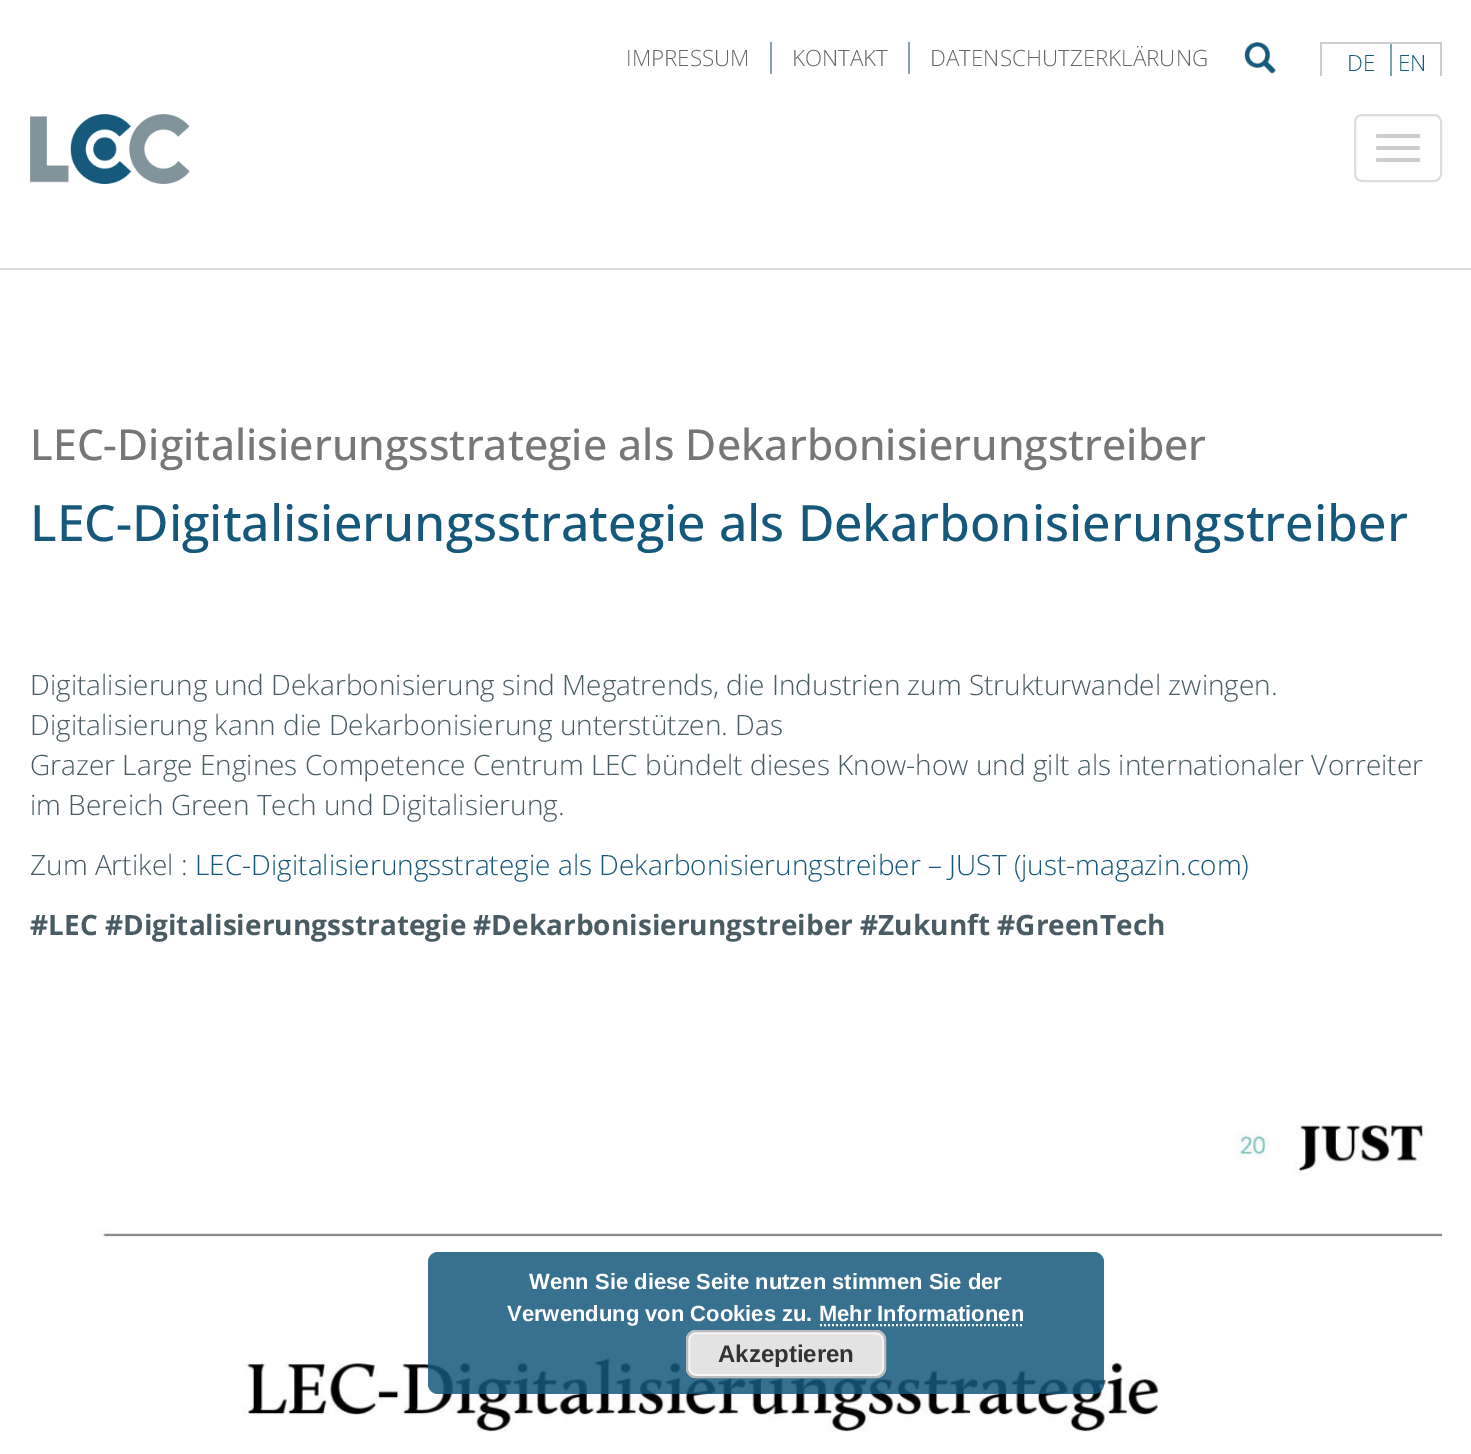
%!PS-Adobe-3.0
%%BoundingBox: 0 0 1471 1454
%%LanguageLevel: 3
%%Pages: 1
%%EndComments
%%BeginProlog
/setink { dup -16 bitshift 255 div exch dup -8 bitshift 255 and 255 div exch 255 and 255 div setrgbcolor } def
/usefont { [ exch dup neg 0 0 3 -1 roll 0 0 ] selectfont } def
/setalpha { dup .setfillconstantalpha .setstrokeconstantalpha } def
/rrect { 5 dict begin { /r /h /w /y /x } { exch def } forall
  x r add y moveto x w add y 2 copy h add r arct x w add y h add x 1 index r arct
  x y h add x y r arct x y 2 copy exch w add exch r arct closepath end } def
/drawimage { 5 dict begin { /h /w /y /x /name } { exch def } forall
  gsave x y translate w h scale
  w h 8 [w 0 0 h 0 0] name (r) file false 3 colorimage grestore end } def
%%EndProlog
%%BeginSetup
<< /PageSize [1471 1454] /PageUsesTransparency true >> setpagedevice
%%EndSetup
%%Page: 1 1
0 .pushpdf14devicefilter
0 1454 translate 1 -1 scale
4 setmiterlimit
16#FFFFFF setink
0 0 1471 1454 rectfill
16#DDDDDD setink
0 268 1471 2 rectfill
16#80A3B4 setink
770 42 2 32 rectfill
/OpenSans-Light 22.4 usefont
16#666666 setink
626 66 moveto (IMPRESSUM) show
16#80A3B4 setink
908 42 2 32 rectfill
16#666666 setink
792 66 moveto (KONTAKT) show
930 66 moveto (DATENSCHUTZERKLÄRUNG) show
(img1.raw) 1244 42 32 32 drawimage
[
    [1320 42 122 2 16#CDCDCD]
    [1440 42 2 34 16#CDCDCD]
    [1320 42 2 34 16#CDCDCD]
    [1390 44 2 32 16#80A3B4]
] { aload pop setink rectfill } forall
16#15587C setink
1347 71 moveto (DE) show
1398 71 moveto (EN) show
(img2.raw) 30 114 160 70 drawimage
16#DDDDDD setink
2 setlinewidth
1355 115 86 66 7 rrect stroke
16#CCCCCC setink
1376 134 44 4 2 rrect fill
1376 146 44 4 2 rrect fill
1376 158 44 4 2 rrect fill
/OpenSans-Medium 42.7 usefont
16#777777 setink
30 460 moveto (LEC-Digitalisierungsstrategie als Dekarbonisierungstreiber) show
/OpenSans-Medium 50 usefont
16#15587C setink
30 541 moveto (LEC-Digitalisierungsstrategie als Dekarbonisierungstreiber) show
/OpenSans-Light 28 usefont
16#495C64 setink
[
    [(Digitalisierung und Dekarbonisierung sind Megatrends, die Industrien zum Strukturwandel zwingen.) 30 695]
    [(Digitalisierung kann die Dekarbonisierung unterstützen. Das) 30 735]
    [(Grazer Large Engines Competence Centrum LEC bündelt dieses Know-how und gilt als internationaler Vorreiter) 30 775]
    [(im Bereich Green Tech und Digitalisierung.) 30 815]
    [(Zum Artikel :) 30 875]
] { aload pop moveto show } forall
16#15587C setink
195 875 moveto (LEC-Digitalisierungsstrategie als Dekarbonisierungstreiber – JUST \(just-magazin.com\)) show
/OpenSans-Bold 28 usefont
16#495C64 setink
30 935 moveto (#LEC #Digitalisierungsstrategie #Dekarbonisierungstreiber #Zukunft #GreenTech) show
(img3.raw) 98 1125 1344 307 drawimage
0.85 setalpha
16#15587C setink
428 1252 676 142 10 rrect fill
/LiberationSans-Bold 22 usefont
1 setalpha
16#FFFFFF setink
529 1289 moveto (Wenn Sie diese Seite nutzen stimmen Sie der) show
507 1321 moveto (Verwendung von Cookies zu. Mehr Informationen) show
[2 2] 0 setdash
820 1325 moveto 1024 1325 lineto stroke
16#E3E3E3 setink
686 1330 200 48 10 rrect fill
16#F6F6F6 setink
[] 0 setdash
689 1333 194 42 7 rrect stroke
16#BBBBBB setink
687 1331 198 46 9 rrect stroke
/LiberationSans-Bold 24 usefont
16#333333 setink
718 1362 moveto (Akzeptieren) show
.poppdf14devicefilter showpage
%%EOF
